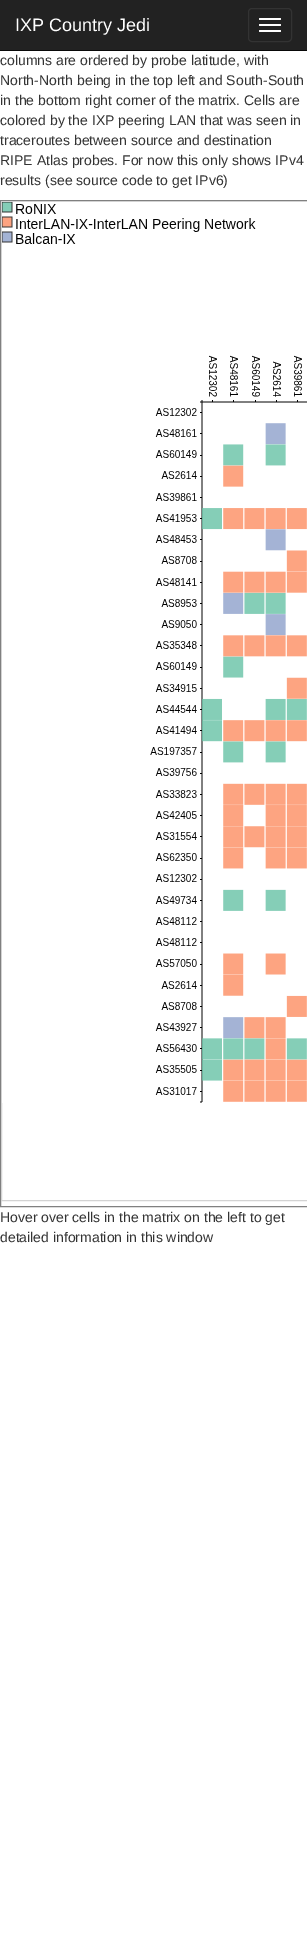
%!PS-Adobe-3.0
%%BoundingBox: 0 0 307 1949
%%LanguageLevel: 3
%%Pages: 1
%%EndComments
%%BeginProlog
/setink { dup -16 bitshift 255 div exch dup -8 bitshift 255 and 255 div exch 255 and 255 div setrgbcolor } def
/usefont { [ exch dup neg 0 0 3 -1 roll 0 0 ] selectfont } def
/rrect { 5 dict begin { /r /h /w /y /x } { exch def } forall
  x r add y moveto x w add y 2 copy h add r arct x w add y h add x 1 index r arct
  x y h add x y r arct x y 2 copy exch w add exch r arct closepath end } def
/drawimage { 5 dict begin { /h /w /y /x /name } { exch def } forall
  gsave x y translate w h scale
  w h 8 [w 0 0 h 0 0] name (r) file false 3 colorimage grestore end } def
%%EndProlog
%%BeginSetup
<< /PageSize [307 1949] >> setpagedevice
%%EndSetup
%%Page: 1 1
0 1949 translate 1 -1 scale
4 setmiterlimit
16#FFFFFF setink
0 0 307 1949 rectfill
16#222222 setink
0 0 307 50 rectfill
16#080808 setink
0 50 307 1 rectfill
/LiberationSans-Regular 18 usefont
16#FFFFFF setink
15 31 moveto (IXP Country Jedi) show
16#333333 setink
248.5 8.5 43 33 3.5 rrect stroke
16#FFFFFF setink
259 18 22 2 1 rrect fill
259 24 22 2 1 rrect fill
259 30 22 2 1 rrect fill
/LiberationSans-Regular 14 usefont
16#333333 setink
[
    [(columns are ordered by probe latitude, with) 0 65]
    [(North-North being in the top left and South-South) 0 85]
    [(in the bottom right corner of the matrix. Cells are) 0 105]
    [(colored by the IXP peering LAN that was seen in) 0 125]
    [(traceroutes between source and destination) 0 145]
    [(RIPE Atlas probes. For now this only shows IPv4) 0 165]
    [(results \(see source code to get IPv6\)) 0 185]
] { aload pop moveto show } forall
16#808080 setink
0.5 200.5 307 1006 rectstroke
16#D3D3D3 setink
1.5 201.5 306 999 rectstroke
(img1.raw) 2 202 305 901 drawimage
16#333333 setink
0 1222 moveto (Hover over cells in the matrix on the left to get) show
0 1242 moveto (detailed information in this window) show
showpage
%%EOF
